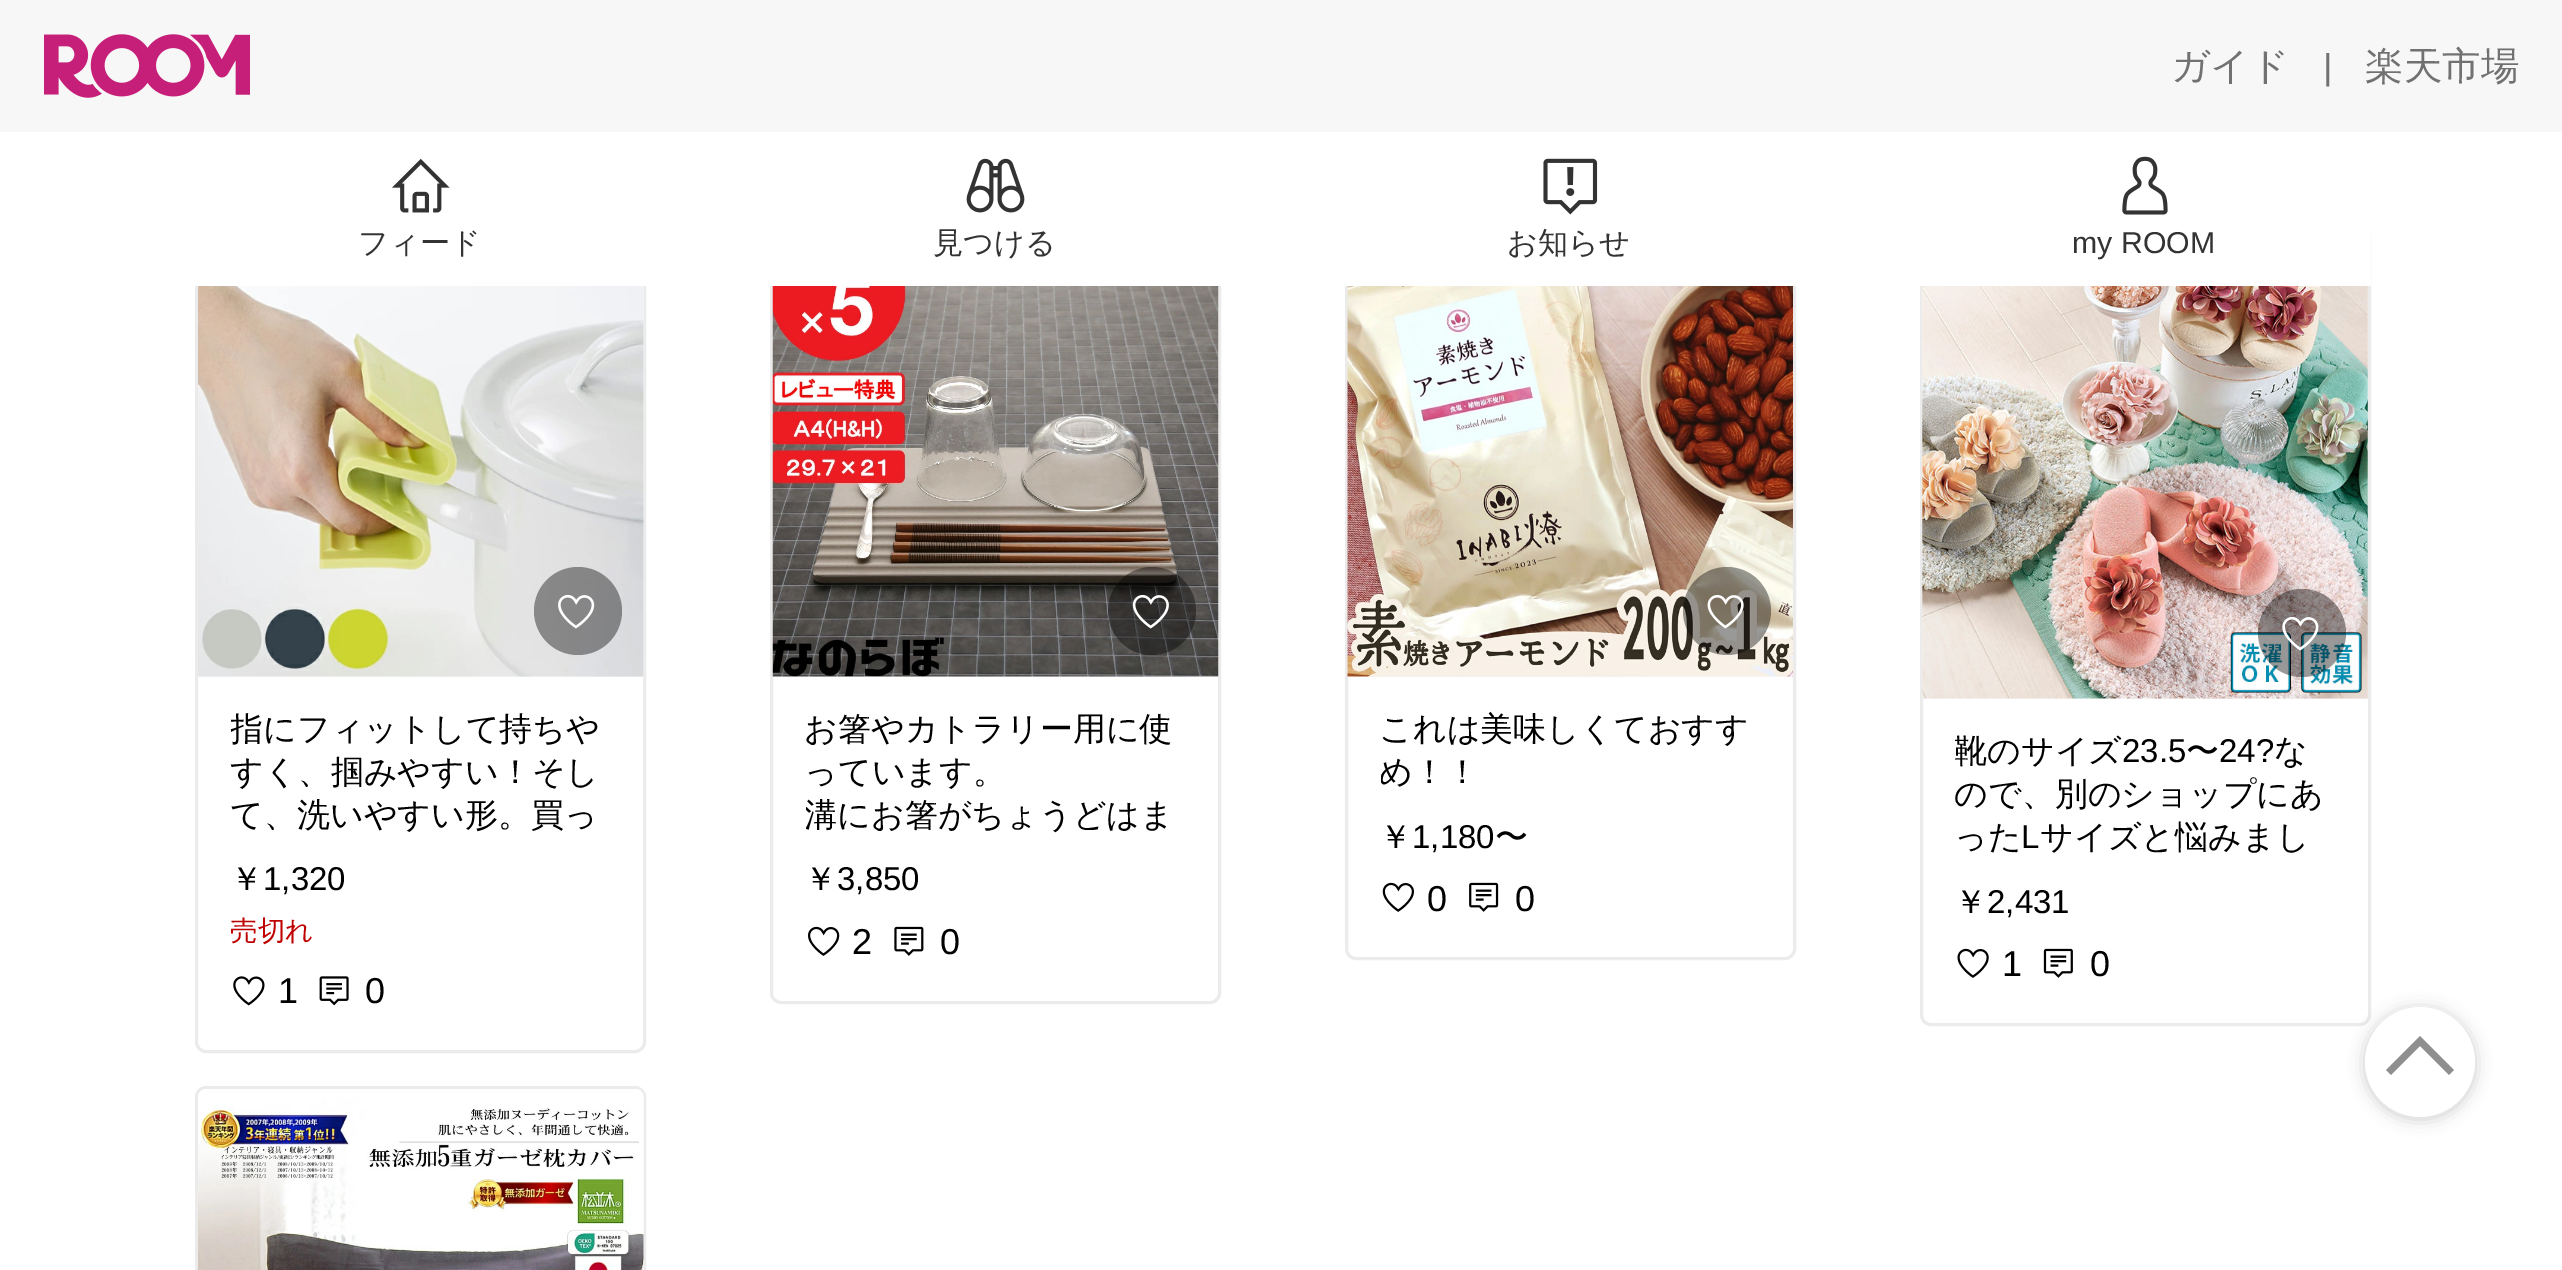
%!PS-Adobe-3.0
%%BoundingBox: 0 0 2562 1270
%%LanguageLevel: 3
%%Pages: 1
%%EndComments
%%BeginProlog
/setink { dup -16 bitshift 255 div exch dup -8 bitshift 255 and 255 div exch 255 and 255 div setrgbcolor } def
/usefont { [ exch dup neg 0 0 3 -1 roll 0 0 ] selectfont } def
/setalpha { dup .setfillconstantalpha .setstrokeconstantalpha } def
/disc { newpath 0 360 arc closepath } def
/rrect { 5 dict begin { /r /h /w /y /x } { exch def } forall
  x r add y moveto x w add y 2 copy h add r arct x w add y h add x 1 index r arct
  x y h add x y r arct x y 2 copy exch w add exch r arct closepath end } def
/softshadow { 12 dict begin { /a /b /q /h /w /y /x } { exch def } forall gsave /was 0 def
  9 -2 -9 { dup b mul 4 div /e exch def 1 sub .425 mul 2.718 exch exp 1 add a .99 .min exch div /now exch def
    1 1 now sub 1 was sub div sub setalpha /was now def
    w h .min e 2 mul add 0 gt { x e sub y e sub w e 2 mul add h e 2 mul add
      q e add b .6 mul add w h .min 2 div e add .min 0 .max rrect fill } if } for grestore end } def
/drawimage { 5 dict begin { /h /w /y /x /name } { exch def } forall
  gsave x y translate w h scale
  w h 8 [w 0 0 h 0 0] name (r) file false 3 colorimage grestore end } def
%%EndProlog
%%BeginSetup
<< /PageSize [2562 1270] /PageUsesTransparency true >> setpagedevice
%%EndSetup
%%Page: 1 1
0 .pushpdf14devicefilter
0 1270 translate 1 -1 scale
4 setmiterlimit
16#FFFFFF setink
0 0 2562 1270 rectfill
16#F7F7F7 setink
0 0 2562 132 rectfill
(img1.raw) 44 34 206 64 drawimage
/WenQuanYiZenHei-Medium 38.5 usefont
16#717171 setink
2171 79 moveto (ガイド) show
/LiberationSans-Regular 36 usefont
2323 79 moveto (|) show
/WenQuanYiZenHei-Medium 38.5 usefont
2365 79 moveto (楽天市場) show
16#EBEBEB setink
3 setlinewidth
196.5 224.5 448 827 9.5 rrect stroke
771.5 224.5 448 778 9.5 rrect stroke
1346.5 224.5 448 734 9.5 rrect stroke
1921.5 224.5 448 800 9.5 rrect stroke
16#FFFFFF setink
195 223 2176 63 rectfill
(img2.raw) 392 158 58 55 drawimage
/WenQuanYiZenHei-Medium 30.25 usefont
16#333333 setink
358 253 moveto (フィード) show
(img3.raw) 966 158 59 55 drawimage
933 253 moveto (見つける) show
(img4.raw) 1543 158 55 57 drawimage
1507 253 moveto (お知らせ) show
(img5.raw) 2122 156 46 59 drawimage
/LiberationSans-Regular 30.25 usefont
2072 253 moveto (my ROOM) show
16#F7F7F7 setink
198 286 446 391 rectfill
(img6.raw) 198 286 446 391 drawimage
0.4 setalpha
16#000000 setink
578 611 44 disc fill
1 setalpha
(img7.raw) 558 595 37 34 drawimage
gsave
231 710 380 132 rectclip
/WenQuanYiZenHei-Medium 33 usefont
230 740 moveto (指にフィットして持ちや) show
grestore
/WenQuanYiZenHei-Medium 33 usefont
[
    [(すく、掴みやすい！そし) 230 783]
    [(て、洗いやすい形。買っ) 230 826]
    [(￥) 230 890]
] { aload pop moveto show } forall
/LiberationSans-Regular 33 usefont
263 890 moveto (1,320) show
/WenQuanYiZenHei-Medium 27.5 usefont
16#BF0000 setink
230 940 moveto (売切れ) show
(img8.raw) 233 976 32 30 drawimage
/LiberationSans-Regular 36 usefont
16#000000 setink
278 1003 moveto (1) show
(img9.raw) 319 976 30 30 drawimage
365 1003 moveto (0) show
16#EBEBEB setink
196.5 1087.5 448 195 9.5 rrect stroke
16#F7F7F7 setink
206 1089 moveto 636 1089 lineto 640.5 1089 644 1092.5 644 1097 curveto 644 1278 lineto 198 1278 lineto 198 1097 lineto 198 1092.5 201.5 1089 206 1089 curveto closepath fill
(img10.raw) 198 1089 446 181 drawimage
773 676 445 1 rectfill
(img11.raw) 772 286 447 391 drawimage
0.4 setalpha
16#000000 setink
1152 611 44 disc fill
1 setalpha
(img12.raw) 1132 594 37 35 drawimage
/WenQuanYiZenHei-Medium 33 usefont
804 740 moveto (お箸やカトラリー用に使) show
804 783 moveto (っています。) show
gsave
806 710 379 132 rectclip
804 826 moveto (溝にお箸がちょうどはま) show
grestore
804 890 moveto (￥) show
/LiberationSans-Regular 33 usefont
837 890 moveto (3,850) show
(img13.raw) 808 926 32 30 drawimage
/LiberationSans-Regular 36 usefont
852 954 moveto (2) show
(img14.raw) 894 926 30 30 drawimage
940 954 moveto (0) show
16#F7F7F7 setink
1348 676 445 1 rectfill
(img15.raw) 1347 286 446 391 drawimage
0.4 setalpha
16#000000 setink
1727 611 44 disc fill
1 setalpha
(img16.raw) 1707 594 37 35 drawimage
/WenQuanYiZenHei-Medium 33 usefont
1379 740 moveto (これは美味しくておすす) show
gsave
1381 710 379 88 rectclip
1379 783 moveto (め！！) show
grestore
1379 848 moveto (￥) show
/LiberationSans-Regular 33 usefont
1412 848 moveto (1,180) show
/WenQuanYiZenHei-Medium 33 usefont
1495 848 moveto (〜) show
(img17.raw) 1382 882 32 30 drawimage
/LiberationSans-Regular 36 usefont
1427 911 moveto (0) show
(img18.raw) 1469 882 30 30 drawimage
1515 911 moveto (0) show
16#F7F7F7 setink
1922 286 446 413 rectfill
(img19.raw) 1922 286 446 413 drawimage
0.4 setalpha
16#000000 setink
2302 633 44 disc fill
1 setalpha
(img20.raw) 2282 616 37 35 drawimage
gsave
1955 732 380 132 rectclip
/WenQuanYiZenHei-Medium 33 usefont
1954 762 moveto (靴のサイズ) show
grestore
/LiberationSans-Regular 33 usefont
2122 762 moveto (23.5) show
/WenQuanYiZenHei-Medium 33 usefont
2186 762 moveto (〜) show
/LiberationSans-Regular 33 usefont
2219 762 moveto (24?) show
/WenQuanYiZenHei-Medium 33 usefont
[
    [(な) 2274 762]
    [(ので、別のショップにあ) 1954 805]
    [(った) 1954 848]
] { aload pop moveto show } forall
/LiberationSans-Regular 33 usefont
2021 848 moveto (L) show
/WenQuanYiZenHei-Medium 33 usefont
2040 848 moveto (サイズと悩みまし) show
1954 913 moveto (￥) show
/LiberationSans-Regular 33 usefont
1987 913 moveto (2,431) show
(img21.raw) 1957 948 32 30 drawimage
/LiberationSans-Regular 36 usefont
2002 976 moveto (1) show
(img22.raw) 2043 948 30 30 drawimage
2090 976 moveto (0) show
2365 1009 110 110 55 8 0.2 softshadow
16#FFFFFF setink
2420 1062 55 disc fill
16#8F8F8F setink
2415 1041 moveto 2386 1070 lineto 2391 1075 lineto 2420 1046 lineto 2449 1075 lineto 2454 1070 lineto 2420 1036 lineto closepath fill
.poppdf14devicefilter showpage
%%EOF
